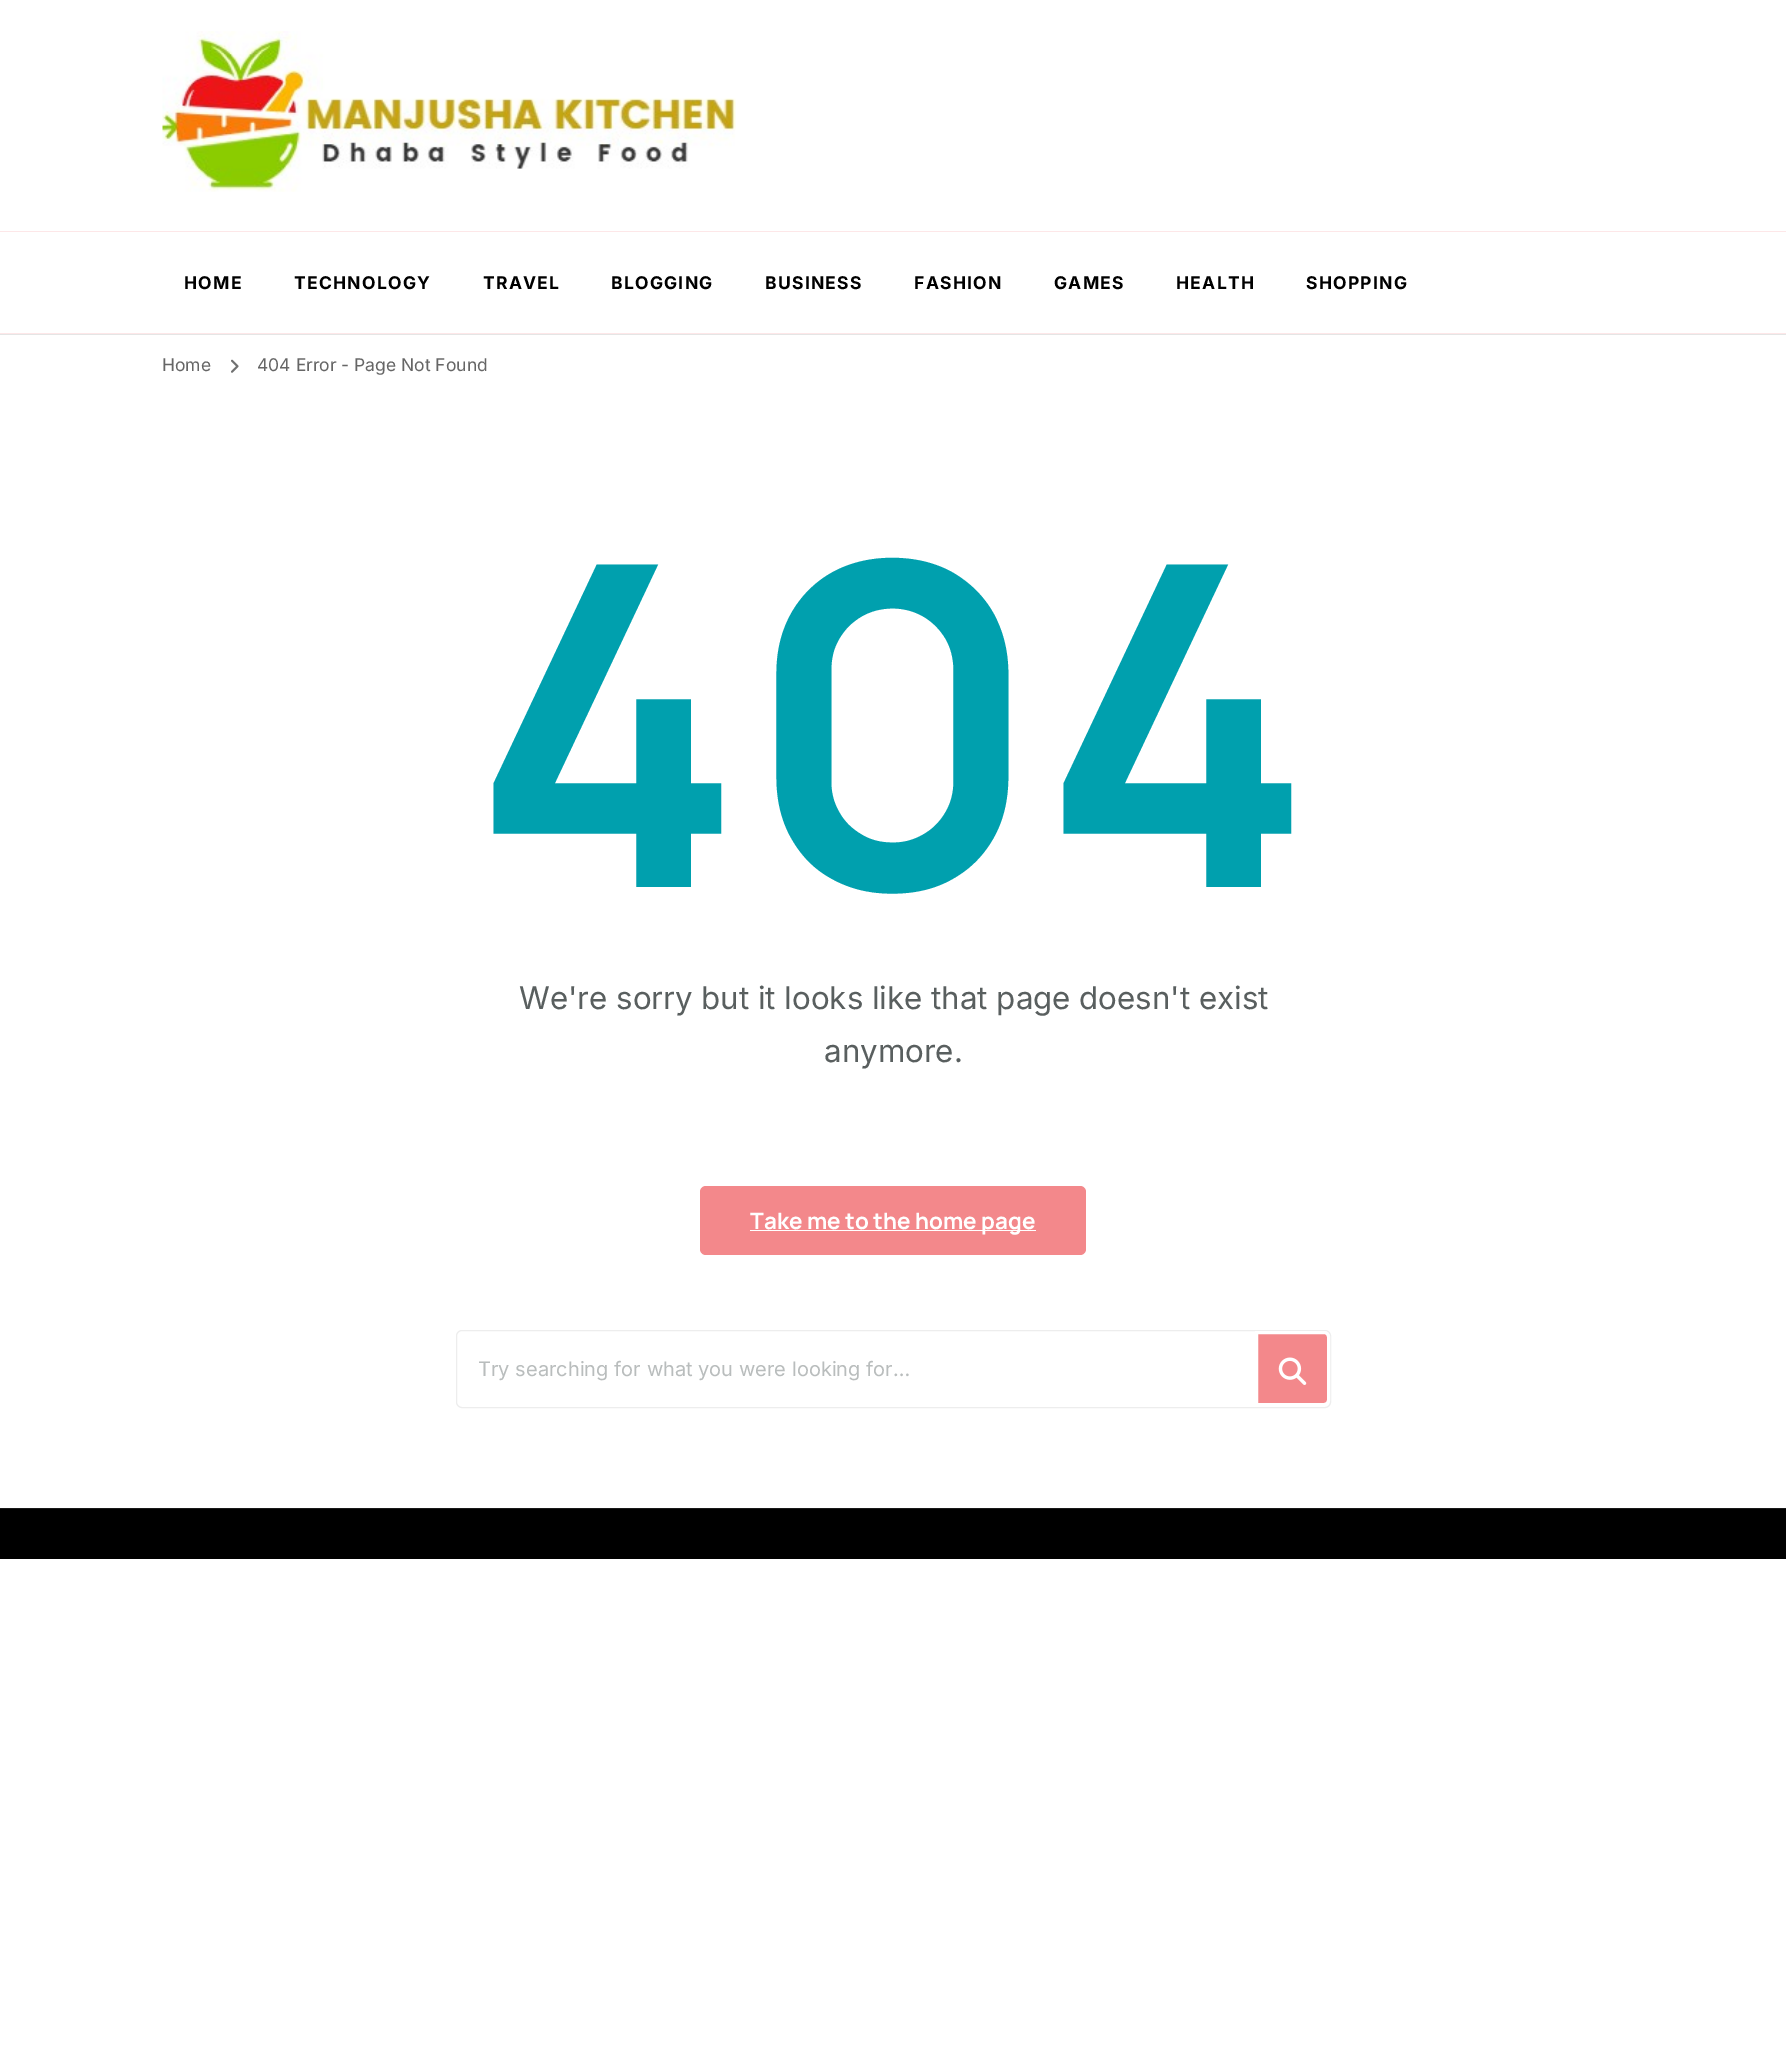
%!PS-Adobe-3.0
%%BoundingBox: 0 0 1786 2051
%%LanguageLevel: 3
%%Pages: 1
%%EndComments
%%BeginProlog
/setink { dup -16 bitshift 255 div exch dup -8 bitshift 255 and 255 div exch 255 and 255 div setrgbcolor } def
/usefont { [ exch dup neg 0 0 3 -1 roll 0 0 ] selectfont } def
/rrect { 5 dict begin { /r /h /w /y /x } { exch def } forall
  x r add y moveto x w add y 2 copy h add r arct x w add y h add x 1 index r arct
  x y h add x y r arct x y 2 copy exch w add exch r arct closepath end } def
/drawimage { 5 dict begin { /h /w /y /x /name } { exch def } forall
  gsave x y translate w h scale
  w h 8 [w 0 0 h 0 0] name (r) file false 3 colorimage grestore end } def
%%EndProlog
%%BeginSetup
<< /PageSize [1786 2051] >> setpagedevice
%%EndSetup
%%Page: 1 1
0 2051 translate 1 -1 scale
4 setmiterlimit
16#FFFFFF setink
0 0 1786 2051 rectfill
16#E5E5E5 setink
0 334 1786 1 rectfill
16#FDE7E8 setink
0 231 1786 1 rectfill
(img1.raw) 162 31 574 161 drawimage
0 333 1786 1 rectfill
/Inter-Bold 17.5 usefont
16#000000 setink
184 289 moveto 1.25 0 (HOME) ashow
294 289 moveto 1.25 0 (TECHNOLOGY) ashow
483 289 moveto 1.25 0 (TRAVEL) ashow
611 289 moveto 1.25 0 (BLOGGING) ashow
765 289 moveto 1.25 0 (BUSINESS) ashow
914 289 moveto 1.25 0 (FASHION) ashow
1054 289 moveto 1.25 0 (GAMES) ashow
1176 289 moveto 1.25 0 (HEALTH) ashow
1306 289 moveto 1.25 0 (SHOPPING) ashow
/Inter-Regular 17.5 usefont
16#666666 setink
162 371 moveto (Home) show
(img2.raw) 231 359 8 14 drawimage
257 371 moveto (404 Error - Page Not Found) show
/Manrope-Bold 450 usefont
16#00A0AE setink
471 887 moveto (404) show
/Inter-Regular 31.25 usefont
16#595F5F setink
519 1009 moveto (We're sorry but it looks like that page doesn't exist) show
824 1062 moveto (anymore.) show
16#F3888B setink
700 1186 386 69 6 rrect fill
16#FFFFFF setink
750 1230 286 1 rectfill
/Manrope-Bold 22.5 usefont
750 1229 moveto (Take me to the home page) show
16#EDEDED setink
456.5 1330.5 874 77 5.5 rrect stroke
/Inter-Regular 20 usefont
16#B9BDBD setink
478 1376 moveto (Try searching for what you were looking for…) show
16#F3888B setink
1256.5 1332.5 moveto 1324 1332.5 lineto 1326.5 1332.5 1328.5 1334.5 1328.5 1337 curveto 1328.5 1400 lineto 1328.5 1402.5 1326.5 1404.5 1324 1404.5 curveto 1256.5 1404.5 lineto closepath gsave fill grestore
16#FFFFFF setink
3 setlinewidth
stroke
(img3.raw) 1278 1357 29 28 drawimage
16#000000 setink
0 1509 1786 50 rectfill
16#1A1A1A setink
0 1508 1786 1 rectfill
showpage
%%EOF
